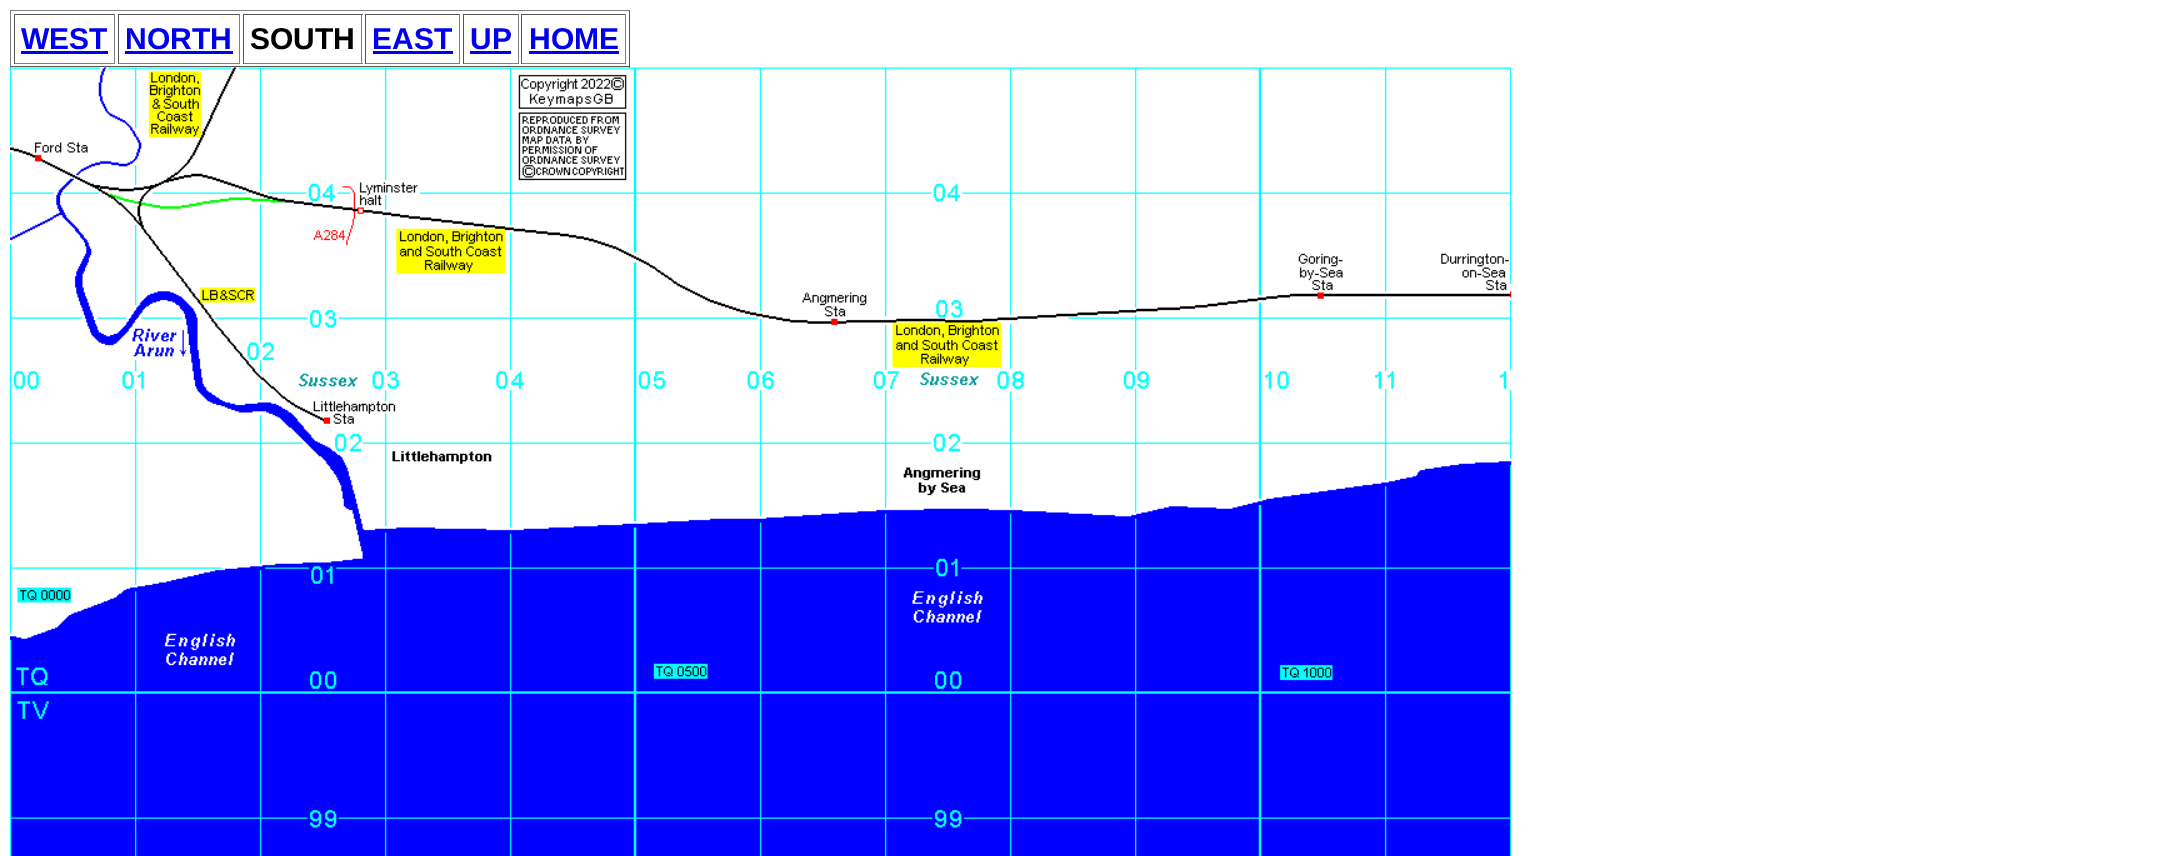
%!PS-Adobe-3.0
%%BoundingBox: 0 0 2184 856
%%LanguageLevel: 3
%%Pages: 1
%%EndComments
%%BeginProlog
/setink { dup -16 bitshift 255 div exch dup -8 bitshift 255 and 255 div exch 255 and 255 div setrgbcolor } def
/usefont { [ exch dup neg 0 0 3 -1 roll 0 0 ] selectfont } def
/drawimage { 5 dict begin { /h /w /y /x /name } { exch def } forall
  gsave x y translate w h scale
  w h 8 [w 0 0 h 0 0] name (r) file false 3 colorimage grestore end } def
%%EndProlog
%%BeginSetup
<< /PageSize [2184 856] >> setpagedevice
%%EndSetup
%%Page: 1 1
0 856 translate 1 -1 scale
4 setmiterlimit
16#FFFFFF setink
0 0 2184 856 rectfill
[
    [10 10 620 1 16#808080]
    [629 10 1 58 16#555555]
    [10 66 620 1 16#555555]
    [10 10 1 58 16#808080]
    [14 14 101 1 16#555555]
    [114 14 1 50 16#808080]
    [14 63 101 1 16#808080]
    [14 14 1 50 16#555555]
] { aload pop setink rectfill } forall
/LiberationSans-Bold 30 usefont
16#0000EE setink
21 49 moveto (WEST) show
[
    [21 51 87 3 16#0000EE]
    [118 14 122 1 16#555555]
    [239 14 1 50 16#808080]
    [118 63 122 1 16#808080]
    [118 14 1 50 16#555555]
] { aload pop setink rectfill } forall
16#0000EE setink
125 49 moveto (NORTH) show
[
    [125 51 108 3 16#0000EE]
    [243 14 120 1 16#555555]
    [361 14 1 50 16#808080]
    [243 63 120 1 16#808080]
    [243 14 1 50 16#555555]
] { aload pop setink rectfill } forall
16#000000 setink
250 49 moveto (SOUTH) show
[
    [365 14 95 1 16#555555]
    [459 14 1 50 16#808080]
    [365 63 95 1 16#808080]
    [365 14 1 50 16#555555]
] { aload pop setink rectfill } forall
16#0000EE setink
372 49 moveto (EAST) show
[
    [373 51 80 3 16#0000EE]
    [463 14 56 1 16#555555]
    [518 14 1 50 16#808080]
    [463 63 56 1 16#808080]
    [463 14 1 50 16#555555]
] { aload pop setink rectfill } forall
16#0000EE setink
470 49 moveto (UP) show
[
    [470 51 41 3 16#0000EE]
    [521 14 105 1 16#555555]
    [625 14 1 50 16#808080]
    [521 63 105 1 16#808080]
    [521 14 1 50 16#555555]
] { aload pop setink rectfill } forall
16#0000EE setink
529 49 moveto (HOME) show
529 51 90 3 rectfill
(img1.raw) 10 67 1502 789 drawimage
showpage
%%EOF
